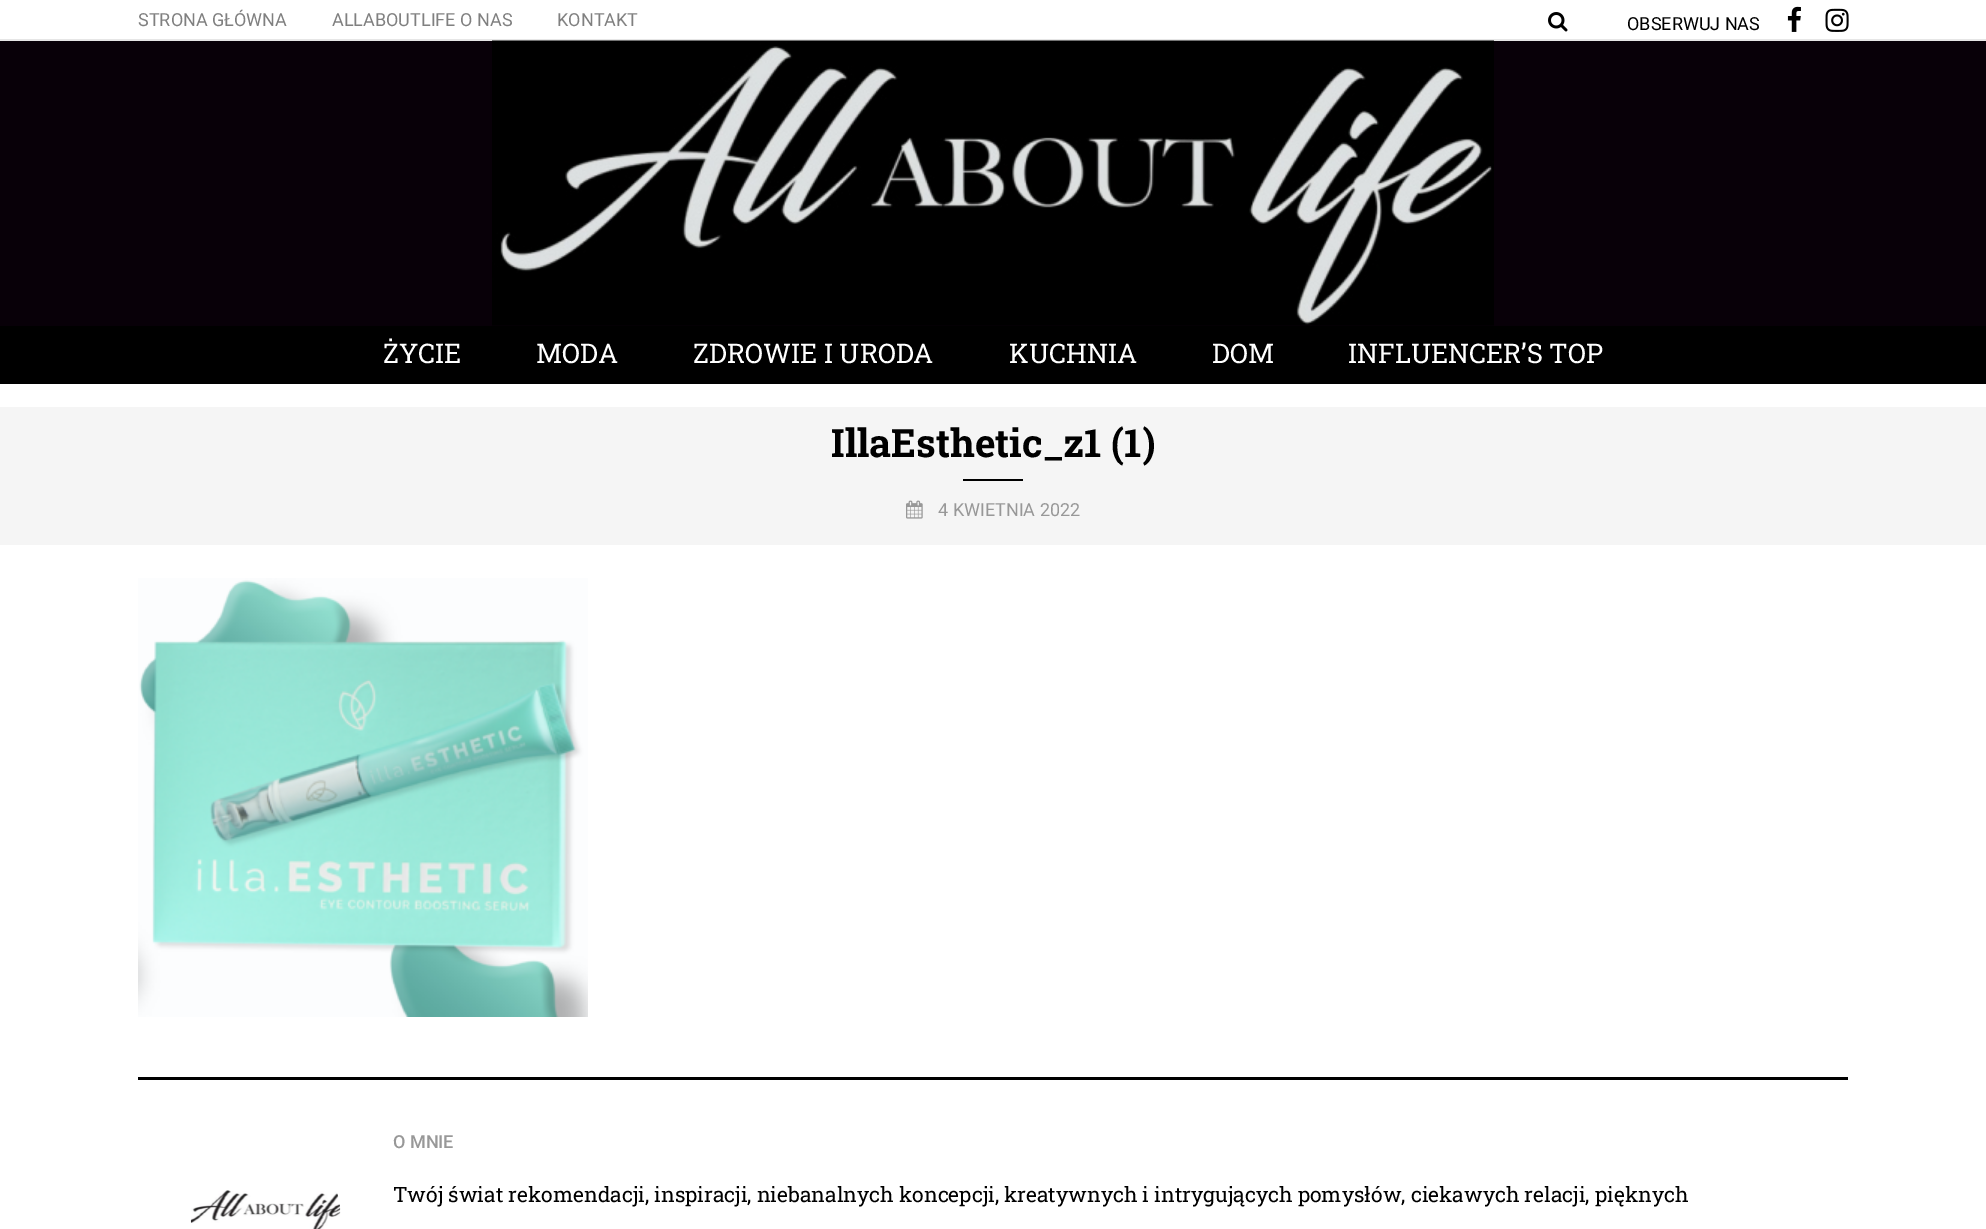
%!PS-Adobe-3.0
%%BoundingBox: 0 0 1986 1229
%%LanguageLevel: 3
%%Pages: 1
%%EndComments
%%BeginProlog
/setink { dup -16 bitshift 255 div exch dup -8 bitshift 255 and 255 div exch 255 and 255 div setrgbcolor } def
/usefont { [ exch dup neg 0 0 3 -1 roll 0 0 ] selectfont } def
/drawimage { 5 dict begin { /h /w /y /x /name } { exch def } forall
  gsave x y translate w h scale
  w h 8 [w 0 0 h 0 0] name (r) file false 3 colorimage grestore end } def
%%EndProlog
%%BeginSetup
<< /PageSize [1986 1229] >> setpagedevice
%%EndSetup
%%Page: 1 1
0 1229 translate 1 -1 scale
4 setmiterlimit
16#FFFFFF setink
0 0 1986 1229 rectfill
16#E6E6E6 setink
0 39 1986 2 rectfill
/Roboto-Regular 18 usefont
16#808080 setink
[
    [(STRONA GŁÓWNA) 138 26]
    [(ALLABOUTLIFE O NAS) 332 26]
    [(KONTAKT) 557 26]
] { aload pop moveto show } forall
(img1.raw) 1548 12 20 20 drawimage
16#000000 setink
1627 30 moveto (OBSERWUJ NAS) show
(img2.raw) 1787 6 14 26 drawimage
(img3.raw) 1825 8 24 24 drawimage
16#080008 setink
0 41 1986 285 rectfill
(img4.raw) 492 40 1002 286 drawimage
16#000000 setink
0 326 1986 58 rectfill
/RobotoSlab-Regular 27 usefont
16#FFFFFF setink
[
    [(ŻYCIE) 383 363]
    [(MODA) 536 363]
    [(ZDROWIE I URODA) 693 363]
    [(KUCHNIA) 1009 363]
    [(DOM) 1212 363]
    [(INFLUENCER’S TOP) 1348 363]
] { aload pop moveto show } forall
16#F5F5F5 setink
0 407 1986 138 rectfill
/RobotoSlab-Bold 39 usefont
16#000000 setink
831 457 moveto (IllaEsthetic_z1 \(1\)) show
963 479 60 2 rectfill
(img5.raw) 906 500 17 19 drawimage
/Roboto-Regular 18 usefont
16#989898 setink
938 516 moveto (4 KWIETNIA 2022) show
(img6.raw) 138 578 450 439 drawimage
16#000000 setink
138 1077 1710 3 rectfill
(img7.raw) 190 1190 151 39 drawimage
/Roboto-Medium 18 usefont
16#989898 setink
393 1148 moveto (O MNIE) show
/RobotoSlab-Regular 21 usefont
16#000000 setink
393 1202 moveto (Twój świat rekomendacji, inspiracji, niebanalnych koncepcji, kreatywnych i intrygujących pomysłów, ciekawych relacji, pięknych) show
showpage
%%EOF
